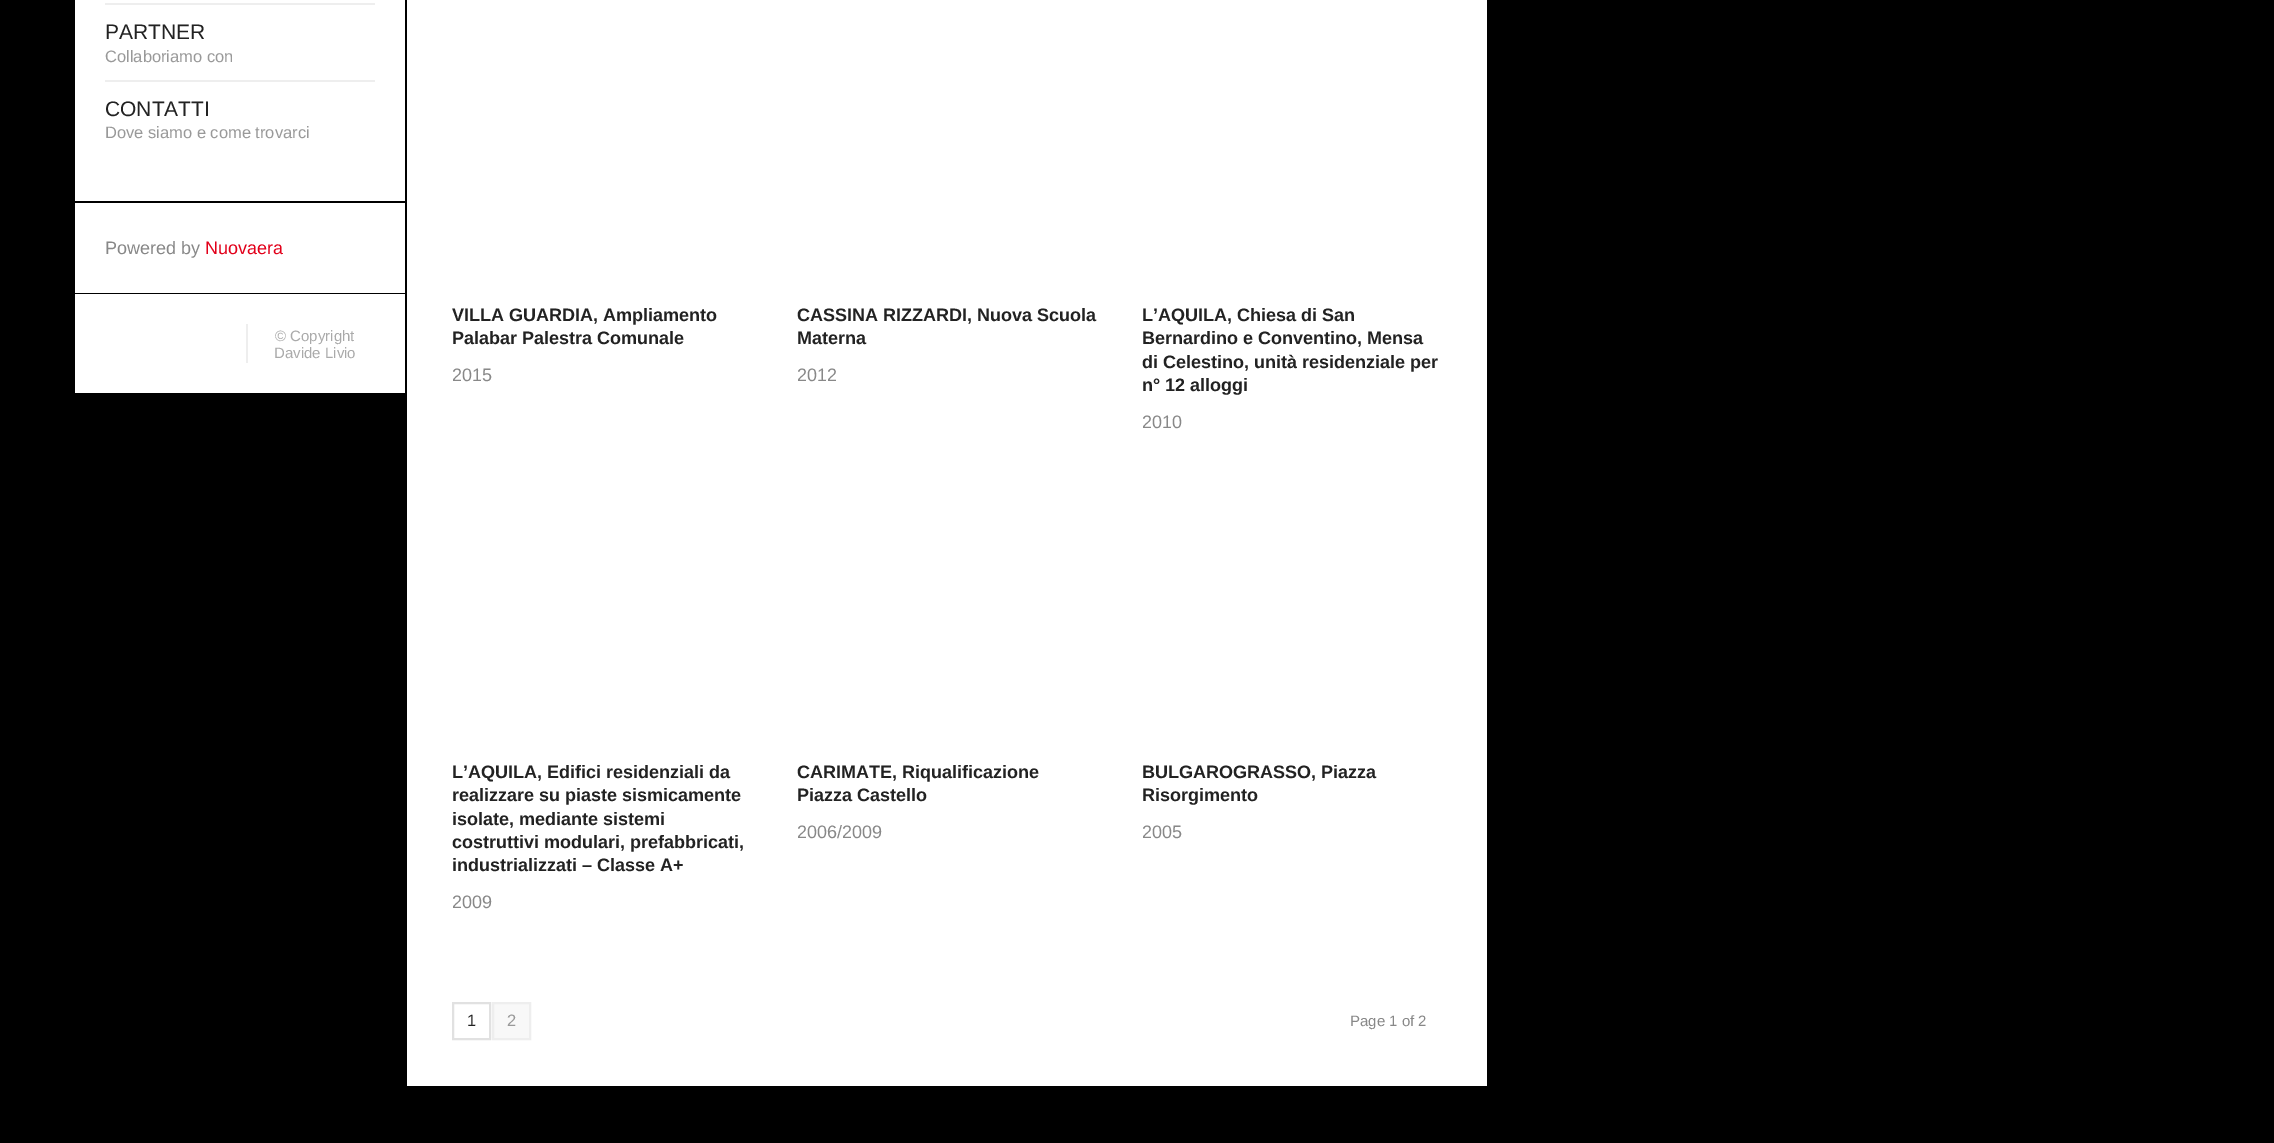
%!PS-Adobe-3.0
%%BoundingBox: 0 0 2274 1143
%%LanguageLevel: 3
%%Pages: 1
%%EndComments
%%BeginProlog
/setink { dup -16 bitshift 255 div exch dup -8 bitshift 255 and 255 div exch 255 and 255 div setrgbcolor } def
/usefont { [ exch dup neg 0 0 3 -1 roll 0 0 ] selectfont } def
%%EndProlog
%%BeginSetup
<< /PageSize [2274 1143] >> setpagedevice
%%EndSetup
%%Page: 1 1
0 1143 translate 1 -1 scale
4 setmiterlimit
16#000000 setink
0 0 2274 1143 rectfill
[
    [75 0 330 201 16#FFFFFF]
    [105 3 270 2 16#EEEEEE]
    [105 80 270 2 16#EEEEEE]
] { aload pop setink rectfill } forall
/LiberationSans-Regular 21 usefont
16#222222 setink
105 39 moveto (PARTNER) show
/LiberationSans-Regular 16.5 usefont
16#999999 setink
105 62 moveto (Collaboriamo con) show
/LiberationSans-Regular 21 usefont
16#222222 setink
105 116 moveto (CONTATTI) show
/LiberationSans-Regular 16.5 usefont
16#999999 setink
105 138 moveto (Dove siamo e come trovarci) show
16#FFFFFF setink
75 203 330 90 rectfill
/LiberationSans-Regular 18 usefont
16#888888 setink
105 254 moveto (Powered by) show
16#E2001A setink
205 254 moveto (Nuovaera) show
16#FFFFFF setink
75 294 330 99 rectfill
16#EEEEEE setink
246 324 2 39 rectfill
/LiberationSans-Regular 15 usefont
16#AAAAAA setink
275 341 moveto (© Copyright) show
274 358 moveto (Davide Livio) show
16#FFFFFF setink
407 0 1080 1086 rectfill
/LiberationSans-Bold 18 usefont
16#222222 setink
452 321 moveto (VILLA GUARDIA, Ampliamento) show
452 344 moveto (Palabar Palestra Comunale) show
/LiberationSans-Regular 18 usefont
16#888888 setink
452 381 moveto (2015) show
/LiberationSans-Bold 18 usefont
16#222222 setink
797 321 moveto (CASSINA RIZZARDI, Nuova Scuola) show
797 344 moveto (Materna) show
/LiberationSans-Regular 18 usefont
16#888888 setink
797 381 moveto (2012) show
/LiberationSans-Bold 18 usefont
16#222222 setink
[
    [(L’AQUILA, Chiesa di San) 1142 321]
    [(Bernardino e Conventino, Mensa) 1142 344]
    [(di Celestino, unità residenziale per) 1142 368]
    [(n° 12 alloggi) 1142 391]
] { aload pop moveto show } forall
/LiberationSans-Regular 18 usefont
16#888888 setink
1142 428 moveto (2010) show
/LiberationSans-Bold 18 usefont
16#222222 setink
[
    [(L’AQUILA, Edifici residenziali da) 452 778]
    [(realizzare su piaste sismicamente) 452 801]
    [(isolate, mediante sistemi) 452 825]
    [(costruttivi modulari, prefabbricati,) 452 848]
    [(industrializzati – Classe A+) 452 871]
] { aload pop moveto show } forall
/LiberationSans-Regular 18 usefont
16#888888 setink
452 908 moveto (2009) show
/LiberationSans-Bold 18 usefont
16#222222 setink
797 778 moveto (CARIMATE, Riqualificazione) show
797 801 moveto (Piazza Castello) show
/LiberationSans-Regular 18 usefont
16#888888 setink
797 838 moveto (2006/2009) show
/LiberationSans-Bold 18 usefont
16#222222 setink
1142 778 moveto (BULGAROGRASSO, Piazza) show
1142 801 moveto (Risorgimento) show
/LiberationSans-Regular 18 usefont
16#888888 setink
1142 838 moveto (2005) show
16#E1E1E1 setink
2 setlinewidth
453 1003 37 36 rectstroke
/LiberationSans-Regular 16.5 usefont
16#222222 setink
467 1026 moveto (1) show
16#F8F8F8 setink
493 1003 moveto 530 1003 lineto 530 1039 lineto 493 1039 lineto closepath gsave fill grestore
16#EEEEEE setink
stroke
16#999999 setink
507 1026 moveto (2) show
/LiberationSans-Regular 15 usefont
16#888888 setink
1350 1026 moveto (Page 1 of 2) show
showpage
%%EOF
